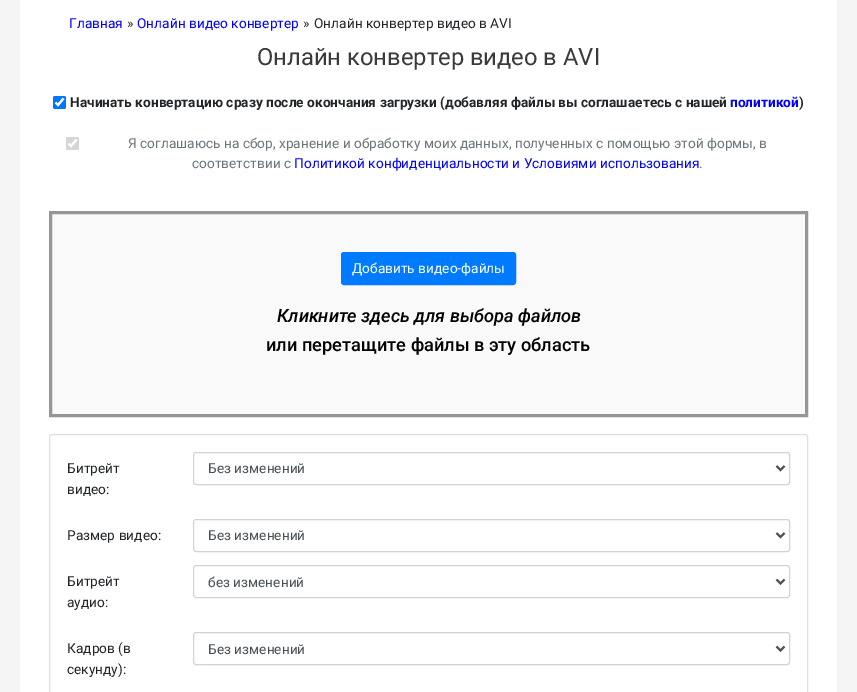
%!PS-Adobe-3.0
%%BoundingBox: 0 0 857 692
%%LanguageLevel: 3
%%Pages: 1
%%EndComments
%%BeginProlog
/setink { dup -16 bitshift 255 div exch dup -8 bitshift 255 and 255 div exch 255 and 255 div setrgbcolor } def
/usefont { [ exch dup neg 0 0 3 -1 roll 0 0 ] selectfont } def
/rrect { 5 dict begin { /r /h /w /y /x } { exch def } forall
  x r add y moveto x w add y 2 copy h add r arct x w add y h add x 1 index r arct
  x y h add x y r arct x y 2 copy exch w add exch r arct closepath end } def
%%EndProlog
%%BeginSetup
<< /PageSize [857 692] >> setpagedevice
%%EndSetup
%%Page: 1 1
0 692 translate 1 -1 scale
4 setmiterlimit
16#F5F5F5 setink
0 0 857 692 rectfill
16#FFFFFF setink
20 0 817 692 rectfill
/Roboto-Regular 13.7 usefont
16#0000FF setink
69 28 moveto (Главная) show
16#212529 setink
127 28 moveto (») show
16#0000FF setink
137 28 moveto (Онлайн видео конвертер) show
16#212529 setink
303 28 moveto (») show
314 28 moveto (Онлайн конвертер видео в AVI) show
/Roboto-Regular 23.75 usefont
16#3A3A3A setink
257 65 moveto (Онлайн конвертер видео в AVI) show
16#0075FF setink
53 96 13 13 2 rrect fill
16#FFFFFF setink
2.1 setlinewidth
55.5 102.5 moveto 58 105 lineto 63.5 98.5 lineto stroke
/Roboto-Bold 13.7 usefont
16#212529 setink
70 107 moveto (Начинать конвертацию сразу после окончания загрузки \(добавляя файлы вы соглашаетесь с нашей) show
16#0000FF setink
730 107 moveto (политикой) show
16#212529 setink
799 107 moveto (\)) show
16#D6D6D6 setink
66 137 13 13 2 rrect fill
16#FFFFFF setink
68.5 143.5 moveto 71 146 lineto 76.5 139.5 lineto stroke
/Roboto-Regular 13.7 usefont
16#6C757D setink
128 148 moveto (Я соглашаюсь на сбор, хранение и обработку моих данных, полученных с помощью этой формы, в) show
192 168 moveto (соответствии с) show
16#0000FF setink
294 168 moveto (Политикой конфиденциальности и Условиями использования) show
16#6C757D setink
699 168 moveto (.) show
16#F9F9F9 setink
50.5 212.5 moveto 806.5 212.5 lineto 806.5 415.5 lineto 50.5 415.5 lineto closepath gsave fill grestore
16#969696 setink
3 setlinewidth
stroke
16#007BFF setink
341.5 252.5 174 32 2.5 rrect gsave fill grestore
1 setlinewidth
stroke
16#FFFFFF setink
352 273 moveto (Добавить видео-файлы) show
/Roboto-MediumItalic 18.25 usefont
16#000000 setink
277 322 moveto (Кликните здесь для выбора файлов) show
/Roboto-Medium 18.25 usefont
266 351 moveto (или перетащите файлы в эту область) show
16#DFDFDF setink
49.5 434.5 758 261 2.5 rrect stroke
/Roboto-Regular 13.7 usefont
16#212529 setink
67 473 moveto (Битрейт) show
67 494 moveto (видео:) show
16#CED4DA setink
193.5 452.5 596 32 2.5 rrect stroke
16#495057 setink
2 setlinewidth
776.5 466 moveto 780.5 470 lineto 784.5 466 lineto stroke
208 473 moveto (Без изменений) show
16#212529 setink
67 540 moveto (Размер видео:) show
16#CED4DA setink
1 setlinewidth
193.5 519.5 596 32 2.5 rrect stroke
16#495057 setink
2 setlinewidth
776.5 533 moveto 780.5 537 lineto 784.5 533 lineto stroke
208 540 moveto (Без изменений) show
16#212529 setink
67 586 moveto (Битрейт) show
67 607 moveto (аудио:) show
16#CED4DA setink
1 setlinewidth
193.5 565.5 596 32 2.5 rrect stroke
16#495057 setink
2 setlinewidth
776.5 579.5 moveto 780.5 583.5 lineto 784.5 579.5 lineto stroke
208 587 moveto (без изменений) show
16#212529 setink
67 653 moveto (Кадров \(в) show
67 674 moveto (секунду\):) show
16#CED4DA setink
1 setlinewidth
193.5 632.5 596 32 2.5 rrect stroke
16#495057 setink
2 setlinewidth
776.5 646.5 moveto 780.5 650.5 lineto 784.5 646.5 lineto stroke
208 654 moveto (Без изменений) show
showpage
%%EOF
